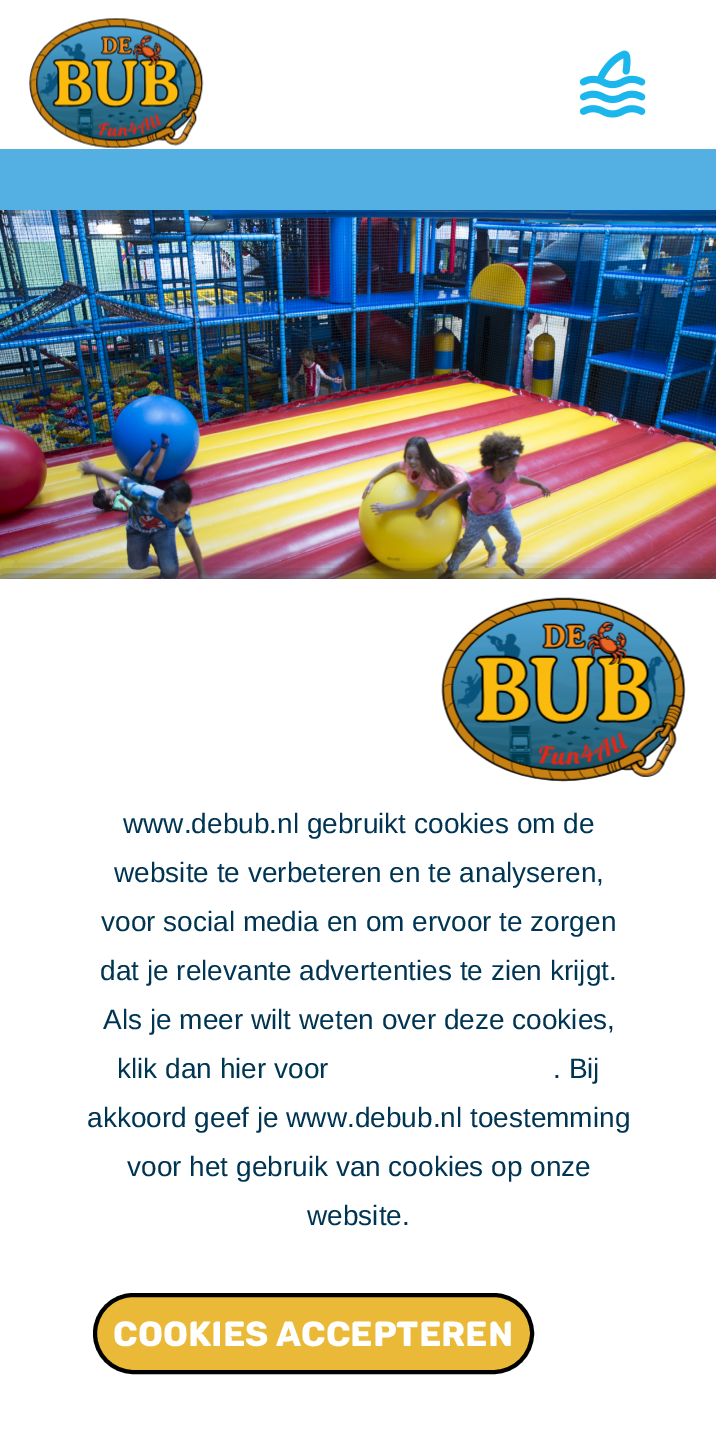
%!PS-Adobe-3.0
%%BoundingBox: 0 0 716 1442
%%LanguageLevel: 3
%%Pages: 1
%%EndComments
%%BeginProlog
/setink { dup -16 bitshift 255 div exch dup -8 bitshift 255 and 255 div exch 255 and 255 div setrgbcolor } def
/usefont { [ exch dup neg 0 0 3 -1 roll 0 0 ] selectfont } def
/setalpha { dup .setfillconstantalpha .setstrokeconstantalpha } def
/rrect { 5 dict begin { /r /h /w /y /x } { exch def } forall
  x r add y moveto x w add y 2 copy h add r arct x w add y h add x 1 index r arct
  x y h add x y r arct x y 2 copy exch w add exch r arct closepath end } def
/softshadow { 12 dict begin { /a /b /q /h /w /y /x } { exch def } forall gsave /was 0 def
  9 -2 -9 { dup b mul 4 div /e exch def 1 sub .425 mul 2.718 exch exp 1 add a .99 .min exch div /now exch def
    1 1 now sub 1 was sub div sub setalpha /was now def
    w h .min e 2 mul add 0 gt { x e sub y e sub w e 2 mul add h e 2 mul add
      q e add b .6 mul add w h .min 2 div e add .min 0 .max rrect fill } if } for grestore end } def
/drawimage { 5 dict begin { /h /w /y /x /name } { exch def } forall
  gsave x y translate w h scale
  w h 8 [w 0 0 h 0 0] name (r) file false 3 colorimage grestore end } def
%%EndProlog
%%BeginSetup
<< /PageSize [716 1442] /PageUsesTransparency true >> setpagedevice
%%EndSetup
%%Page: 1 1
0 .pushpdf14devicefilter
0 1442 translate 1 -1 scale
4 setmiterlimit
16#54B0E3 setink
0 0 716 1442 rectfill
16#FFFFFF setink
0 0 716 149 rectfill
(img1.raw) 29 18 175 131 drawimage
(img2.raw) 579 50 67 68 drawimage
(img3.raw) 0 210 716 369 drawimage
16#323232 setink
0 576 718 863 0 10.5 0.75 softshadow
16#FFFFFF setink
0 579 716 863 rectfill
(img4.raw) 441 597 245 185 drawimage
/LiberationSans-Regular 28 usefont
16#003453 setink
[
    [(www.debub.nl gebruikt cookies om de) 123 833]
    [(website te verbeteren en te analyseren,) 114 882]
    [(voor social media en om ervoor te zorgen) 101 931]
    [(dat je relevante advertenties te zien krijgt.) 100 980]
    [(Als je meer wilt weten over deze cookies,) 103 1029]
    [(klik dan hier voor) 117 1078]
    [(. Bij) 553 1078]
    [(akkoord geef je www.debub.nl toestemming) 87 1127]
    [(voor het gebruik van cookies op onze) 127 1176]
    [(website.) 307 1225]
] { aload pop moveto show } forall
16#EAB937 setink
95 1295 437 77 38.5 rrect gsave fill grestore
16#000000 setink
4 setlinewidth
stroke
/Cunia-Bold 35 usefont
16#FFFFFF setink
113 1346 moveto (Cookies accepteren) show
.poppdf14devicefilter showpage
%%EOF
